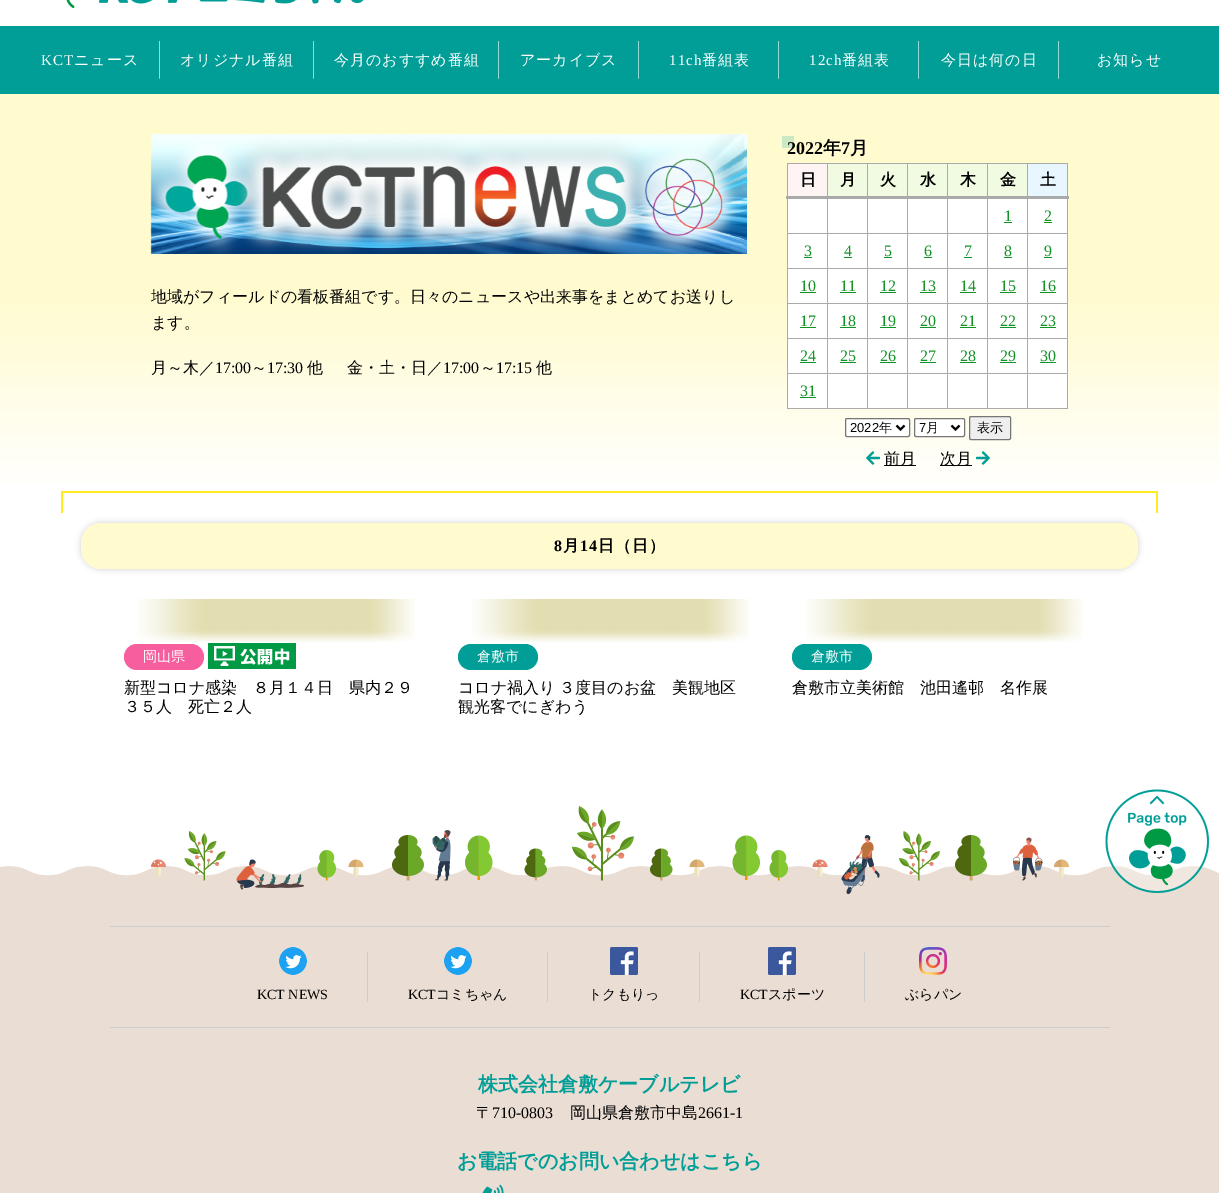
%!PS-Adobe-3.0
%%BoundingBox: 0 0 1219 1193
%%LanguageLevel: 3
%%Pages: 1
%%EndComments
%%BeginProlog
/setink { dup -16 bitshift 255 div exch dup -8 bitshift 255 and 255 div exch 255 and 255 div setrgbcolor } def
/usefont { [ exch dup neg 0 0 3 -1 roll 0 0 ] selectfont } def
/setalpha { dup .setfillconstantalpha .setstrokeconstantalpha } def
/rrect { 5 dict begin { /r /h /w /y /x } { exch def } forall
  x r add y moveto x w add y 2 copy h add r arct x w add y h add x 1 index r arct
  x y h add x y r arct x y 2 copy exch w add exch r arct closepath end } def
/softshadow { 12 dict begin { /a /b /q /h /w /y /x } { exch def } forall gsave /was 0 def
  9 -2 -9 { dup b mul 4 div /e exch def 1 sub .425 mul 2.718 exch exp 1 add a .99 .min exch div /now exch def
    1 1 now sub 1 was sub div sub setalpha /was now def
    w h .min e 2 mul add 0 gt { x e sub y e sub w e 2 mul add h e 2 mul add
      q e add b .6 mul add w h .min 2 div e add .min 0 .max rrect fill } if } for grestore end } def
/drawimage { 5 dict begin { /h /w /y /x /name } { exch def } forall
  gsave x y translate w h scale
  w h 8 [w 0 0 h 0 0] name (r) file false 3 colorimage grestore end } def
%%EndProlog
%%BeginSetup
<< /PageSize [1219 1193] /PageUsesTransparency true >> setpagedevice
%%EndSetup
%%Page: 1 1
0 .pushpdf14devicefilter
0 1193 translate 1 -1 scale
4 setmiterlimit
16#FFFFFF setink
0 0 1219 1193 rectfill
(img1.raw) 66 0 298 8 drawimage
16#009E96 setink
0 26 1219 68 rectfill
(img2.raw) 159 41 1 38 drawimage
/LiberationSerif-Regular 15 usefont
16#FFFFFF setink
41 65 moveto 1 0 (KCT) ashow
/WenQuanYiZenHei-Medium 15 usefont
74 65 moveto 1 0 (ニュース) ashow
(img2.raw) 313 41 1 38 drawimage
180 65 moveto 1 0 (オリジナル番組) ashow
(img2.raw) 498 41 1 38 drawimage
334 65 moveto 1 0 (今月のおすすめ番組) ashow
(img2.raw) 638 41 1 38 drawimage
520 65 moveto 1 0 (アーカイブス) ashow
(img2.raw) 778 41 1 38 drawimage
/LiberationSerif-Regular 15 usefont
669 65 moveto 1 0 (11ch) ashow
/WenQuanYiZenHei-Medium 15 usefont
702 65 moveto 1 0 (番組表) ashow
(img2.raw) 918 41 1 38 drawimage
/LiberationSerif-Regular 15 usefont
809 65 moveto 1 0 (12ch) ashow
/WenQuanYiZenHei-Medium 15 usefont
842 65 moveto 1 0 (番組表) ashow
(img2.raw) 1058 41 1 38 drawimage
941 65 moveto 1 0 (今日は何の日) ashow
1097 65 moveto 1 0 (お知らせ) ashow
gsave 0 94 moveto 1219 94 lineto 1219 485 lineto 0 485 lineto closepath clip newpath
<< /ShadingType 2 /ColorSpace /DeviceRGB /Coords [610 94 610 866] /Extend [true true] /Function << /FunctionType 3 /Domain [0 1] /Functions [<< /FunctionType 2 /Domain [0 1] /C0 [1 0.984 0.812] /C1 [1 0.984 0.812] /N 1 >> << /FunctionType 2 /Domain [0 1] /C0 [1 0.984 0.812] /C1 [1 1 1] /N 1 >> << /FunctionType 2 /Domain [0 1] /C0 [1 1 1] /C1 [1 1 1] /N 1 >>] /Bounds [0.26 0.52] /Encode [0 1 0 1 0 1] >> >> shfill grestore
(img3.raw) 150 134 597 120 drawimage
/WenQuanYiZenHei-Medium 16 usefont
16#000000 setink
[
    [(地域がフィールドの看板番組です。日々のニュースや出来事をまとめてお送りし) 151 302]
    [(ます。) 151 328]
    [(月～木／) 151 373]
] { aload pop moveto show } forall
/LiberationSerif-Regular 16 usefont
215 373 moveto (17:00) show
/WenQuanYiZenHei-Medium 16 usefont
251 373 moveto (～) show
/LiberationSerif-Regular 16 usefont
267 373 moveto (17:30) show
/WenQuanYiZenHei-Medium 16 usefont
307 373 moveto (他) show
347 373 moveto (金・土・日／) show
/LiberationSerif-Regular 16 usefont
443 373 moveto (17:00) show
/WenQuanYiZenHei-Medium 16 usefont
480 373 moveto (～) show
/LiberationSerif-Regular 16 usefont
496 373 moveto (17:15) show
/WenQuanYiZenHei-Medium 16 usefont
536 373 moveto (他) show
16#CCE8C4 setink
782 136 12 12 rectfill
/WenQuanYiZenHei-Bold 18 usefont
16#000000 setink
823 154 moveto (年) show
850 154 moveto (月) show
/LiberationSerif-Bold 18 usefont
787 154 moveto (2022) show
841 154 moveto (7) show
[
    [788 164 39 32 16#FFF4F4]
    [1027 163 41 1 16#AAAAAA]
    [1027 233 41 1 16#AAAAAA]
    [1027 268 41 1 16#AAAAAA]
    [1027 303 41 1 16#AAAAAA]
    [1027 338 41 1 16#AAAAAA]
    [1027 373 41 1 16#AAAAAA]
    [1067 373 1 36 16#AAAAAA]
    [1027 408 41 1 16#AAAAAA]
    [1027 373 1 36 16#AAAAAA]
    [987 373 41 1 16#AAAAAA]
    [1027 338 1 36 16#AAAAAA]
    [987 338 41 1 16#AAAAAA]
    [1027 303 1 36 16#AAAAAA]
    [987 303 41 1 16#AAAAAA]
    [1027 268 1 36 16#AAAAAA]
    [987 268 41 1 16#AAAAAA]
    [1027 233 1 36 16#AAAAAA]
    [987 233 41 1 16#AAAAAA]
    [1027 197 1 37 16#AAAAAA]
    [1027 163 1 35 16#AAAAAA]
    [987 163 41 1 16#AAAAAA]
    [987 408 41 1 16#AAAAAA]
    [987 373 1 36 16#AAAAAA]
    [947 373 41 1 16#AAAAAA]
    [987 338 1 36 16#AAAAAA]
    [947 338 41 1 16#AAAAAA]
    [987 303 1 36 16#AAAAAA]
    [947 303 41 1 16#AAAAAA]
    [987 268 1 36 16#AAAAAA]
    [947 268 41 1 16#AAAAAA]
    [987 233 1 36 16#AAAAAA]
    [947 233 41 1 16#AAAAAA]
    [987 197 1 37 16#AAAAAA]
    [987 163 1 35 16#AAAAAA]
    [947 163 41 1 16#AAAAAA]
    [947 408 41 1 16#AAAAAA]
    [947 373 1 36 16#AAAAAA]
    [907 373 41 1 16#AAAAAA]
    [947 338 1 36 16#AAAAAA]
    [907 338 41 1 16#AAAAAA]
    [947 303 1 36 16#AAAAAA]
    [907 303 41 1 16#AAAAAA]
    [947 268 1 36 16#AAAAAA]
    [907 268 41 1 16#AAAAAA]
    [947 233 1 36 16#AAAAAA]
    [907 233 41 1 16#AAAAAA]
    [947 197 1 37 16#AAAAAA]
    [947 163 1 35 16#AAAAAA]
    [907 163 41 1 16#AAAAAA]
    [907 408 41 1 16#AAAAAA]
    [907 373 1 36 16#AAAAAA]
    [867 373 41 1 16#AAAAAA]
    [907 338 1 36 16#AAAAAA]
    [867 338 41 1 16#AAAAAA]
    [907 303 1 36 16#AAAAAA]
    [867 303 41 1 16#AAAAAA]
    [907 268 1 36 16#AAAAAA]
    [867 268 41 1 16#AAAAAA]
    [907 233 1 36 16#AAAAAA]
    [867 233 41 1 16#AAAAAA]
    [907 197 1 37 16#AAAAAA]
    [907 163 1 35 16#AAAAAA]
    [867 163 41 1 16#AAAAAA]
    [867 408 41 1 16#AAAAAA]
    [867 373 1 36 16#AAAAAA]
    [827 373 41 1 16#AAAAAA]
    [867 338 1 36 16#AAAAAA]
    [827 338 41 1 16#AAAAAA]
    [867 303 1 36 16#AAAAAA]
    [827 303 41 1 16#AAAAAA]
    [867 268 1 36 16#AAAAAA]
    [827 268 41 1 16#AAAAAA]
    [867 233 1 36 16#AAAAAA]
    [827 233 41 1 16#AAAAAA]
    [867 197 1 37 16#AAAAAA]
    [867 163 1 35 16#AAAAAA]
    [827 163 41 1 16#AAAAAA]
    [827 408 41 1 16#AAAAAA]
    [827 373 1 36 16#AAAAAA]
    [787 373 41 1 16#AAAAAA]
    [827 338 1 36 16#AAAAAA]
    [787 338 41 1 16#AAAAAA]
    [827 303 1 36 16#AAAAAA]
    [787 303 41 1 16#AAAAAA]
    [827 268 1 36 16#AAAAAA]
    [787 268 41 1 16#AAAAAA]
    [827 233 1 36 16#AAAAAA]
    [787 233 41 1 16#AAAAAA]
    [827 197 1 37 16#AAAAAA]
    [827 163 1 35 16#AAAAAA]
    [787 163 41 1 16#AAAAAA]
    [787 408 41 1 16#AAAAAA]
    [787 373 1 36 16#AAAAAA]
    [787 338 1 36 16#AAAAAA]
    [787 303 1 36 16#AAAAAA]
    [787 268 1 36 16#AAAAAA]
    [787 197 1 72 16#AAAAAA]
    [787 163 1 35 16#AAAAAA]
] { aload pop setink rectfill } forall
/WenQuanYiZenHei-Bold 16 usefont
16#000000 setink
800 185 moveto (日) show
16#F1FBE1 setink
828 164 39 32 rectfill
16#000000 setink
840 185 moveto (月) show
16#F1FBE1 setink
868 164 39 32 rectfill
16#000000 setink
880 185 moveto (火) show
16#F1FBE1 setink
908 164 39 32 rectfill
16#000000 setink
920 185 moveto (水) show
16#F1FBE1 setink
948 164 39 32 rectfill
16#000000 setink
960 185 moveto (木) show
16#F1FBE1 setink
988 164 39 32 rectfill
16#000000 setink
1000 185 moveto (金) show
[
    [1028 164 39 32 16#E8F7FF]
    [1067 338 1 36 16#AAAAAA]
    [1067 303 1 36 16#AAAAAA]
    [1067 268 1 36 16#AAAAAA]
    [1067 197 1 72 16#AAAAAA]
    [1067 163 1 35 16#AAAAAA]
    [786 196 283 3 16#AAAAAA]
] { aload pop setink rectfill } forall
16#000000 setink
1040 185 moveto (土) show
[
    [788 199 39 34 16#FFFFFF]
    [828 199 39 34 16#FFFFFF]
    [868 199 39 34 16#FFFFFF]
    [908 199 39 34 16#FFFFFF]
    [948 199 39 34 16#FFFFFF]
    [988 199 39 34 16#FFFFFF]
] { aload pop setink rectfill } forall
/LiberationSerif-Regular 16 usefont
16#129225 setink
1004 221 moveto (1) show
1004 222 8 1 rectfill
16#FFFFFF setink
1028 199 39 34 rectfill
16#129225 setink
1044 221 moveto (2) show
1044 222 8 1 rectfill
16#FFFFFF setink
788 234 39 34 rectfill
16#129225 setink
804 256 moveto (3) show
804 257 8 1 rectfill
16#FFFFFF setink
828 234 39 34 rectfill
16#129225 setink
844 256 moveto (4) show
844 257 8 1 rectfill
16#FFFFFF setink
868 234 39 34 rectfill
16#129225 setink
884 256 moveto (5) show
884 257 8 1 rectfill
16#FFFFFF setink
908 234 39 34 rectfill
16#129225 setink
924 256 moveto (6) show
924 257 8 1 rectfill
16#FFFFFF setink
948 234 39 34 rectfill
16#129225 setink
964 256 moveto (7) show
964 257 8 1 rectfill
16#FFFFFF setink
988 234 39 34 rectfill
16#129225 setink
1004 256 moveto (8) show
1004 257 8 1 rectfill
16#FFFFFF setink
1028 234 39 34 rectfill
16#129225 setink
1044 256 moveto (9) show
1044 257 8 1 rectfill
16#FFFFFF setink
788 269 39 34 rectfill
16#129225 setink
800 291 moveto (10) show
800 292 16 1 rectfill
16#FFFFFF setink
828 269 39 34 rectfill
16#129225 setink
840 291 moveto (11) show
840 292 16 1 rectfill
16#FFFFFF setink
868 269 39 34 rectfill
16#129225 setink
880 291 moveto (12) show
880 292 16 1 rectfill
16#FFFFFF setink
908 269 39 34 rectfill
16#129225 setink
920 291 moveto (13) show
920 292 16 1 rectfill
16#FFFFFF setink
948 269 39 34 rectfill
16#129225 setink
960 291 moveto (14) show
960 292 16 1 rectfill
16#FFFFFF setink
988 269 39 34 rectfill
16#129225 setink
1000 291 moveto (15) show
1000 292 16 1 rectfill
16#FFFFFF setink
1028 269 39 34 rectfill
16#129225 setink
1040 291 moveto (16) show
1040 292 16 1 rectfill
16#FFFFFF setink
788 304 39 34 rectfill
16#129225 setink
800 326 moveto (17) show
800 327 16 1 rectfill
16#FFFFFF setink
828 304 39 34 rectfill
16#129225 setink
840 326 moveto (18) show
840 327 16 1 rectfill
16#FFFFFF setink
868 304 39 34 rectfill
16#129225 setink
880 326 moveto (19) show
880 327 16 1 rectfill
16#FFFFFF setink
908 304 39 34 rectfill
16#129225 setink
920 326 moveto (20) show
920 327 16 1 rectfill
16#FFFFFF setink
948 304 39 34 rectfill
16#129225 setink
960 326 moveto (21) show
960 327 16 1 rectfill
16#FFFFFF setink
988 304 39 34 rectfill
16#129225 setink
1000 326 moveto (22) show
1000 327 16 1 rectfill
16#FFFFFF setink
1028 304 39 34 rectfill
16#129225 setink
1040 326 moveto (23) show
1040 327 16 1 rectfill
16#FFFFFF setink
788 339 39 34 rectfill
16#129225 setink
800 361 moveto (24) show
800 362 16 1 rectfill
16#FFFFFF setink
828 339 39 34 rectfill
16#129225 setink
840 361 moveto (25) show
840 362 16 1 rectfill
16#FFFFFF setink
868 339 39 34 rectfill
16#129225 setink
880 361 moveto (26) show
880 362 16 1 rectfill
16#FFFFFF setink
908 339 39 34 rectfill
16#129225 setink
920 361 moveto (27) show
920 362 16 1 rectfill
16#FFFFFF setink
948 339 39 34 rectfill
16#129225 setink
960 361 moveto (28) show
960 362 16 1 rectfill
16#FFFFFF setink
988 339 39 34 rectfill
16#129225 setink
1000 361 moveto (29) show
1000 362 16 1 rectfill
16#FFFFFF setink
1028 339 39 34 rectfill
16#129225 setink
1040 361 moveto (30) show
1040 362 16 1 rectfill
16#FFFFFF setink
788 374 39 34 rectfill
16#129225 setink
800 396 moveto (31) show
[
    [800 397 16 1 16#129225]
    [828 374 39 34 16#FFFFFF]
    [868 374 39 34 16#FFFFFF]
    [908 374 39 34 16#FFFFFF]
    [948 374 39 34 16#FFFFFF]
    [988 374 39 34 16#FFFFFF]
    [1028 374 39 34 16#FFFFFF]
] { aload pop setink rectfill } forall
845.5 418.5 64 18 1.5 rrect gsave fill grestore
16#767676 setink
stroke
16#000000 setink
2 setlinewidth
896.5 425.5 moveto 900.5 429.5 lineto 904.5 425.5 lineto stroke
/LiberationSans-Regular 13 usefont
850 432 moveto (2022) show
/WenQuanYiZenHei-Medium 13 usefont
879 432 moveto (年) show
16#FFFFFF setink
914.5 418.5 50 18 1.5 rrect gsave fill grestore
16#767676 setink
1 setlinewidth
stroke
16#000000 setink
2 setlinewidth
951.5 425.5 moveto 955.5 429.5 lineto 959.5 425.5 lineto stroke
/LiberationSans-Regular 13 usefont
919 432 moveto (7) show
/WenQuanYiZenHei-Medium 13 usefont
926 432 moveto (月) show
16#EFEFEF setink
969.5 416.5 41 23 1.5 rrect gsave fill grestore
16#767676 setink
1 setlinewidth
stroke
16#000000 setink
977 432 moveto (表示) show
(img4.raw) 866 451 14 14 drawimage
884 465 32 1 rectfill
/WenQuanYiZenHei-Medium 16 usefont
884 464 moveto (前月) show
940 465 32 1 rectfill
940 464 moveto (次月) show
(img5.raw) 976 451 14 14 drawimage
[
    [61 491 1097 2 16#FFEC1C]
    [61 493 2 20 16#FFEC1C]
    [1156 493 2 20 16#FFEC1C]
] { aload pop setink rectfill } forall
16#CDCCCC setink
81 523 1057 46 20 3 1 softshadow
16#FFFBCF setink
81 523 1057 46 20 rrect fill
/LiberationSerif-Bold 16 usefont
16#000000 setink
554 551 moveto 1 0 (8) ashow
/WenQuanYiZenHei-Bold 16 usefont
563 551 moveto 1 0 (月) ashow
/LiberationSerif-Bold 16 usefont
580 551 moveto 1 0 (14) ashow
/WenQuanYiZenHei-Bold 16 usefont
598 551 moveto 1 0 (日（日）) ashow
(img6.raw) 138 599 277 43 drawimage
16#F75E9E setink
124 644 80 26 13 rrect fill
/WenQuanYiZenHei-Medium 14 usefont
16#FFFFFF setink
143 661 moveto (岡山県) show
(img7.raw) 208 643 88 26 drawimage
/WenQuanYiZenHei-Medium 16 usefont
16#000000 setink
124 693 moveto (新型コロナ感染　８月１４日　県内２９) show
124 712 moveto (３５人　死亡２人) show
(img6.raw) 472 599 277 43 drawimage
16#009E96 setink
458 644 80 26 13 rrect fill
/WenQuanYiZenHei-Medium 14 usefont
16#FFFFFF setink
477 661 moveto (倉敷市) show
/WenQuanYiZenHei-Medium 16 usefont
16#000000 setink
458 693 moveto -1 0 32 (コロナ禍入り ３度目のお盆　美観地区) widthshow
458 712 moveto (観光客でにぎわう) show
(img6.raw) 806 599 277 43 drawimage
16#009E96 setink
792 644 80 26 13 rrect fill
/WenQuanYiZenHei-Medium 14 usefont
16#FFFFFF setink
811 661 moveto (倉敷市) show
/WenQuanYiZenHei-Medium 16 usefont
16#000000 setink
792 693 moveto (倉敷市立美術館　池田遙邨　名作展) show
16#EADDD4 setink
0 876 1219 317 rectfill
(img8.raw) 0 866 1219 10 drawimage
(img9.raw) 151 806 918 88 drawimage
(img10.raw) 1105 789 104 104 drawimage
16#CCCCCC setink
110 926 1000 1 rectfill
110 1027 1000 1 rectfill
(img11.raw) 279 947 28 28 drawimage
367 952 1 50 rectfill
/LiberationSerif-Regular 14 usefont
16#000000 setink
257 999 moveto (KCT NEWS) show
(img11.raw) 444 947 28 28 drawimage
16#CCCCCC setink
547 952 1 50 rectfill
16#000000 setink
408 999 moveto (KCT) show
/WenQuanYiZenHei-Medium 14 usefont
436 999 moveto (コミちゃん) show
(img12.raw) 610 947 28 28 drawimage
16#CCCCCC setink
699 952 1 50 rectfill
16#000000 setink
588 999 moveto (トクもりっ) show
(img12.raw) 768 947 28 28 drawimage
16#CCCCCC setink
864 952 1 50 rectfill
/LiberationSerif-Regular 14 usefont
16#000000 setink
740 999 moveto (KCT) show
/WenQuanYiZenHei-Medium 14 usefont
768 999 moveto (スポーツ) show
(img13.raw) 919 947 28 28 drawimage
905 999 moveto (ぶらパン) show
/WenQuanYiZenHei-Bold 20 usefont
16#009E96 setink
478 1091 moveto (株式会社倉敷ケーブルテレビ) show
/WenQuanYiZenHei-Medium 16 usefont
16#000000 setink
476 1118 moveto (〒) show
/LiberationSerif-Regular 16 usefont
492 1118 moveto (710-0803) show
/WenQuanYiZenHei-Medium 16 usefont
570 1118 moveto (岡山県倉敷市中島) show
/LiberationSerif-Regular 16 usefont
698 1118 moveto (2661-1) show
/WenQuanYiZenHei-Bold 20 usefont
16#009E96 setink
457 1168 moveto (お電話でのお問い合わせはこちら) show
(img14.raw) 482 1184 22 9 drawimage
.poppdf14devicefilter showpage
%%EOF
